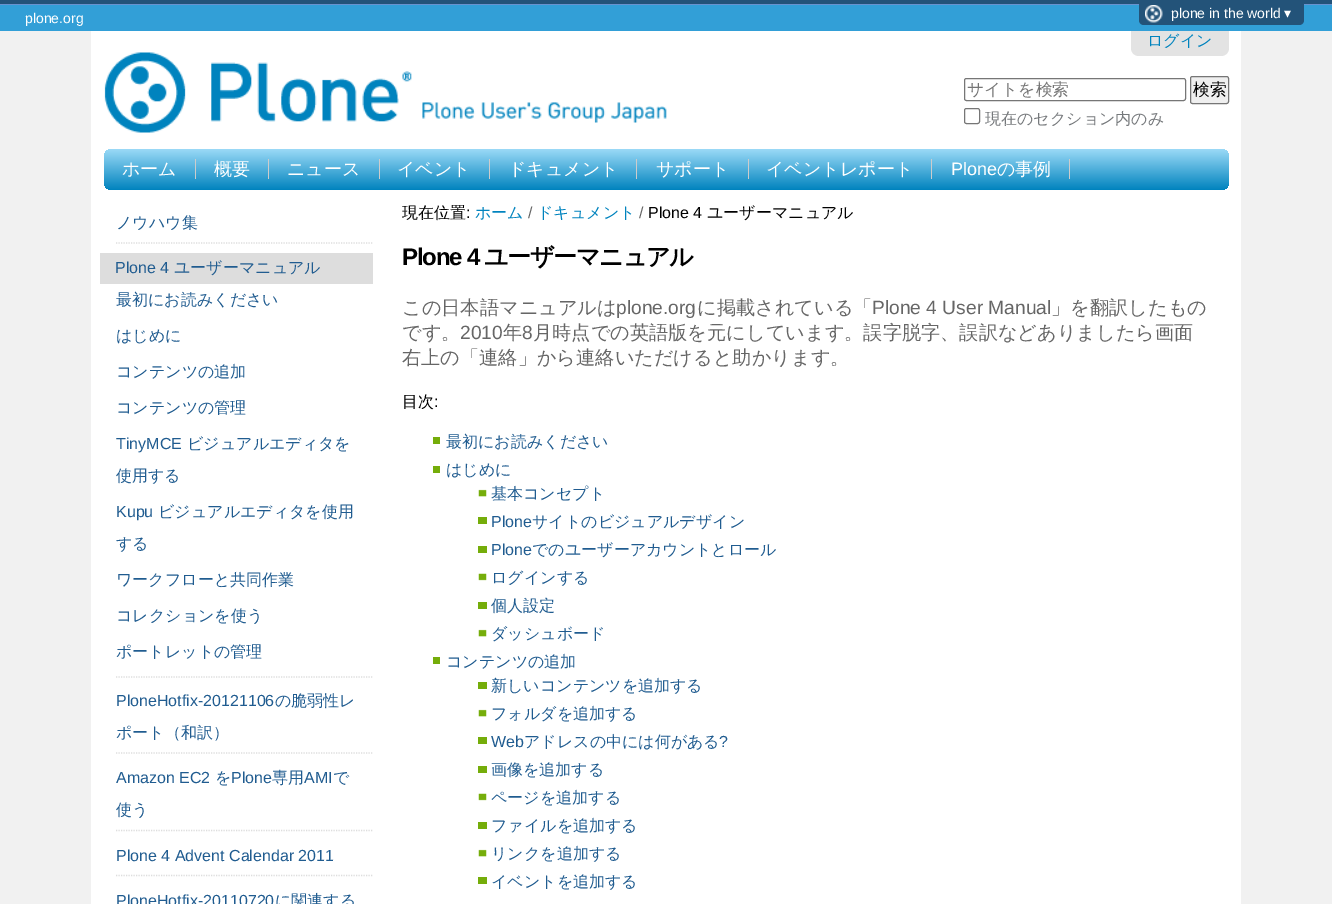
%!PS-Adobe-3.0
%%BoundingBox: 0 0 1332 904
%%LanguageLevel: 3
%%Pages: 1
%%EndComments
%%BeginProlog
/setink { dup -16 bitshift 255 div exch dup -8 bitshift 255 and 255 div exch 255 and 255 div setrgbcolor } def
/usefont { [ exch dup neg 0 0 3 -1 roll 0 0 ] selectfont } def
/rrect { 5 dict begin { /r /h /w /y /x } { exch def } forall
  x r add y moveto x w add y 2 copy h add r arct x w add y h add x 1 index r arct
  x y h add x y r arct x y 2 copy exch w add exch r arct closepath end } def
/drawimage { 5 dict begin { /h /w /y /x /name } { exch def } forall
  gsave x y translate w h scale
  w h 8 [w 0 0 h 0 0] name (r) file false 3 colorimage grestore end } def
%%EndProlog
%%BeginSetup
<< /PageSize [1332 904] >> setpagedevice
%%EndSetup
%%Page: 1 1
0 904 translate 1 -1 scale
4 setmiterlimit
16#F1F1F1 setink
0 0 1332 904 rectfill
16#235379 setink
0 0 1332 4 rectfill
16#FFFFFF setink
91 31 1150 873 rectfill
16#E3E3E3 setink
1131 28 moveto 1229 28 lineto 1229 48 lineto 1229 52.5 1225.5 56 1221 56 curveto 1139 56 lineto 1134.5 56 1131 52.5 1131 48 curveto closepath fill
16#329FD7 setink
0 5 1332 26 rectfill
16#6992CE setink
0 4 1332 1 rectfill
/LiberationSans-Regular 14 usefont
16#FFFFFF setink
25 23 moveto (plone.org) show
16#235379 setink
1139 4 moveto 1304 4 lineto 1304 20 lineto 1304 23 1302 25 1299 25 curveto 1144 25 lineto 1141 25 1139 23 1139 20 curveto closepath fill
(img1.raw) 1145 5 18 18 drawimage
16#FFFFFF setink
1171 18 moveto (plone in the world) show
/DejaVuSans-Regular 14 usefont
1284 18 moveto (▾) show
/WenQuanYiZenHei-Medium 16 usefont
16#0083BE setink
1147 46 moveto (ログイン) show
(img2.raw) 104 52 563 81 drawimage
16#767676 setink
964.5 78.5 221 22 2 rrect stroke
/WenQuanYiZenHei-Medium 16.75 usefont
16#757575 setink
967 95 moveto (サイトを検索) show
16#EFEFEF setink
1190.5 76.5 38 27 2 rrect gsave fill grestore
16#767676 setink
stroke
16#000000 setink
1193 95 moveto (検索) show
16#767676 setink
964.5 108.5 15 15 2 rrect stroke
/WenQuanYiZenHei-Medium 16 usefont
16#76797C setink
985 124 moveto (現在のセクション内のみ) show
gsave 104 149 1125 41 8 rrect clip newpath
<< /ShadingType 2 /ColorSpace /DeviceRGB /Coords [666 149 666 190] /Extend [true true] /Function << /FunctionType 2 /Domain [0 1] /C0 [0.608 0.855 0.969] /C1 [0 0.514 0.745] /N 1 >> >> shfill grestore
/WenQuanYiZenHei-Medium 18 usefont
16#FFFFFF setink
122 175 moveto (ホーム) show
16#CCCCCC setink
195 159 1 20 rectfill
16#FFFFFF setink
214 175 moveto (概要) show
16#CCCCCC setink
268 159 1 20 rectfill
16#FFFFFF setink
287 175 moveto (ニュース) show
16#CCCCCC setink
379 159 1 20 rectfill
16#FFFFFF setink
397 175 moveto (イベント) show
16#CCCCCC setink
489 159 1 20 rectfill
16#FFFFFF setink
508 175 moveto (ドキュメント) show
16#CCCCCC setink
636 159 1 20 rectfill
16#FFFFFF setink
656 175 moveto (サポート) show
16#CCCCCC setink
748 159 1 20 rectfill
16#FFFFFF setink
766 175 moveto (イベントレポート) show
16#CCCCCC setink
931 159 1 20 rectfill
/LiberationSans-Regular 18 usefont
16#FFFFFF setink
951 175 moveto (Plone) show
/WenQuanYiZenHei-Medium 18 usefont
997 175 moveto (の事例) show
16#CCCCCC setink
1069 159 1 20 rectfill
16#DDDDDD setink
1.2 setlinewidth
[1.25 1.25] 0 setdash
116 243 moveto 372.5 243 lineto stroke
/WenQuanYiZenHei-Medium 16 usefont
16#205C90 setink
116 228 moveto (ノウハウ集) show
16#DDDDDD setink
116 677 moveto 372.5 677 lineto stroke
100 253 273 31 rectfill
/LiberationSans-Regular 16 usefont
16#205C90 setink
115 273 moveto (Plone 4) show
/WenQuanYiZenHei-Medium 16 usefont
[
    [(ユーザーマニュアル) 174 273]
    [(最初にお読みください) 116 305]
    [(はじめに) 116 341]
    [(コンテンツの追加) 116 377]
    [(コンテンツの管理) 116 413]
] { aload pop moveto show } forall
/LiberationSans-Regular 16 usefont
116 449 moveto (TinyMCE) show
/WenQuanYiZenHei-Medium 16 usefont
187 449 moveto (ビジュアルエディタを) show
116 481 moveto (使用する) show
/LiberationSans-Regular 16 usefont
116 517 moveto (Kupu) show
/WenQuanYiZenHei-Medium 16 usefont
[
    [(ビジュアルエディタを使用) 158 517]
    [(する) 116 549]
    [(ワークフローと共同作業) 116 585]
    [(コレクションを使う) 116 621]
    [(ポートレットの管理) 116 657]
] { aload pop moveto show } forall
16#DDDDDD setink
116 753 moveto 372.5 753 lineto stroke
/LiberationSans-Regular 16 usefont
16#205C90 setink
116 706 moveto (PloneHotfix-20121106) show
/WenQuanYiZenHei-Medium 16 usefont
275 706 moveto (の脆弱性レ) show
116 738 moveto (ポート（和訳）) show
16#DDDDDD setink
116 830.5 moveto 372.5 830.5 lineto stroke
/LiberationSans-Regular 16 usefont
16#205C90 setink
116 783 moveto (Amazon EC2) show
/WenQuanYiZenHei-Medium 16 usefont
215 783 moveto (を) show
/LiberationSans-Regular 16 usefont
231 783 moveto (Plone) show
/WenQuanYiZenHei-Medium 16 usefont
272 783 moveto (専用) show
/LiberationSans-Regular 16 usefont
304 783 moveto (AMI) show
/WenQuanYiZenHei-Medium 16 usefont
333 783 moveto (で) show
116 815 moveto (使う) show
16#DDDDDD setink
116 875.5 moveto 372.5 875.5 lineto stroke
/LiberationSans-Regular 16 usefont
16#205C90 setink
116 861 moveto (Plone 4 Advent Calendar 2011) show
116 906 moveto (PloneHotfix-20110720) show
/WenQuanYiZenHei-Medium 16 usefont
275 906 moveto (に関連する) show
16#000000 setink
402 218 moveto (現在位置) show
/LiberationSans-Regular 16 usefont
466 218 moveto (:) show
/WenQuanYiZenHei-Medium 16 usefont
16#0083BE setink
475 218 moveto (ホーム) show
/LiberationSans-Regular 16 usefont
16#666666 setink
528 218 moveto (/) show
/WenQuanYiZenHei-Medium 16 usefont
16#0083BE setink
537 218 moveto (ドキュメント) show
/LiberationSans-Regular 16 usefont
16#666666 setink
639 218 moveto (/) show
16#000000 setink
648 218 moveto (Plone 4) show
/WenQuanYiZenHei-Medium 16 usefont
707 218 moveto (ユーザーマニュアル) show
/LiberationSans-Bold 24 usefont
402 265 moveto -1.25 0 (Plone 4) ashow
/WenQuanYiZenHei-Bold 24 usefont
484 265 moveto -1.25 0 (ユーザーマニュアル) ashow
/WenQuanYiZenHei-Medium 19.2 usefont
16#666666 setink
402 314 moveto (この日本語マニュアルは) show
/LiberationSans-Regular 19.2 usefont
616 314 moveto (plone.org) show
/WenQuanYiZenHei-Medium 19.2 usefont
697 314 moveto (に掲載されている「) show
/LiberationSans-Regular 19.2 usefont
872 314 moveto (Plone 4 User Manual) show
/WenQuanYiZenHei-Medium 19.2 usefont
1051 314 moveto (」を翻訳したもの) show
402 339 moveto (です。) show
/LiberationSans-Regular 19.2 usefont
460 339 moveto (2010) show
/WenQuanYiZenHei-Medium 19.2 usefont
503 339 moveto (年) show
/LiberationSans-Regular 19.2 usefont
522 339 moveto (8) show
/WenQuanYiZenHei-Medium 19.2 usefont
533 339 moveto (月時点での英語版を元にしています。誤字脱字、誤訳などありましたら画面) show
402 364 moveto (右上の「連絡」から連絡いただけると助かります。) show
/WenQuanYiZenHei-Medium 16 usefont
16#000000 setink
402 407 moveto (目次) show
/LiberationSans-Regular 16 usefont
434 407 moveto (:) show
16#75AD0A setink
433 437 7 7 rectfill
/WenQuanYiZenHei-Medium 16 usefont
16#205C90 setink
446 447 moveto (最初にお読みください) show
16#75AD0A setink
433 466 7 7 rectfill
16#205C90 setink
446 475 moveto (はじめに) show
(img3.raw) 478 489 9 8 drawimage
491 499 moveto (基本コンセプト) show
16#75AD0A setink
478 517 9 7 rectfill
/LiberationSans-Regular 16 usefont
16#205C90 setink
491 527 moveto (Plone) show
/WenQuanYiZenHei-Medium 16 usefont
532 527 moveto (サイトのビジュアルデザイン) show
16#75AD0A setink
478 546 9 7 rectfill
/LiberationSans-Regular 16 usefont
16#205C90 setink
491 555 moveto (Plone) show
/WenQuanYiZenHei-Medium 16 usefont
532 555 moveto (でのユーザーアカウントとロール) show
(img4.raw) 478 573 9 8 drawimage
491 583 moveto (ログインする) show
16#75AD0A setink
478 602 9 7 rectfill
16#205C90 setink
491 611 moveto (個人設定) show
(img3.raw) 478 629 9 8 drawimage
491 639 moveto (ダッシュボード) show
16#75AD0A setink
433 657 7 7 rectfill
16#205C90 setink
446 667 moveto (コンテンツの追加) show
16#75AD0A setink
478 682 9 7 rectfill
16#205C90 setink
491 691 moveto (新しいコンテンツを追加する) show
(img3.raw) 478 709 9 8 drawimage
491 719 moveto (フォルダを追加する) show
16#75AD0A setink
478 737 9 7 rectfill
/LiberationSans-Regular 16 usefont
16#205C90 setink
491 747 moveto (Web) show
/WenQuanYiZenHei-Medium 16 usefont
524 747 moveto (アドレスの中には何がある) show
/LiberationSans-Regular 16 usefont
719 747 moveto (?) show
16#75AD0A setink
478 766 9 7 rectfill
/WenQuanYiZenHei-Medium 16 usefont
16#205C90 setink
491 775 moveto (画像を追加する) show
(img4.raw) 478 793 9 8 drawimage
491 803 moveto (ページを追加する) show
16#75AD0A setink
478 822 9 7 rectfill
16#205C90 setink
491 831 moveto (ファイルを追加する) show
(img3.raw) 478 849 9 8 drawimage
491 859 moveto (リンクを追加する) show
16#75AD0A setink
478 877 9 7 rectfill
16#205C90 setink
491 887 moveto (イベントを追加する) show
showpage
%%EOF
